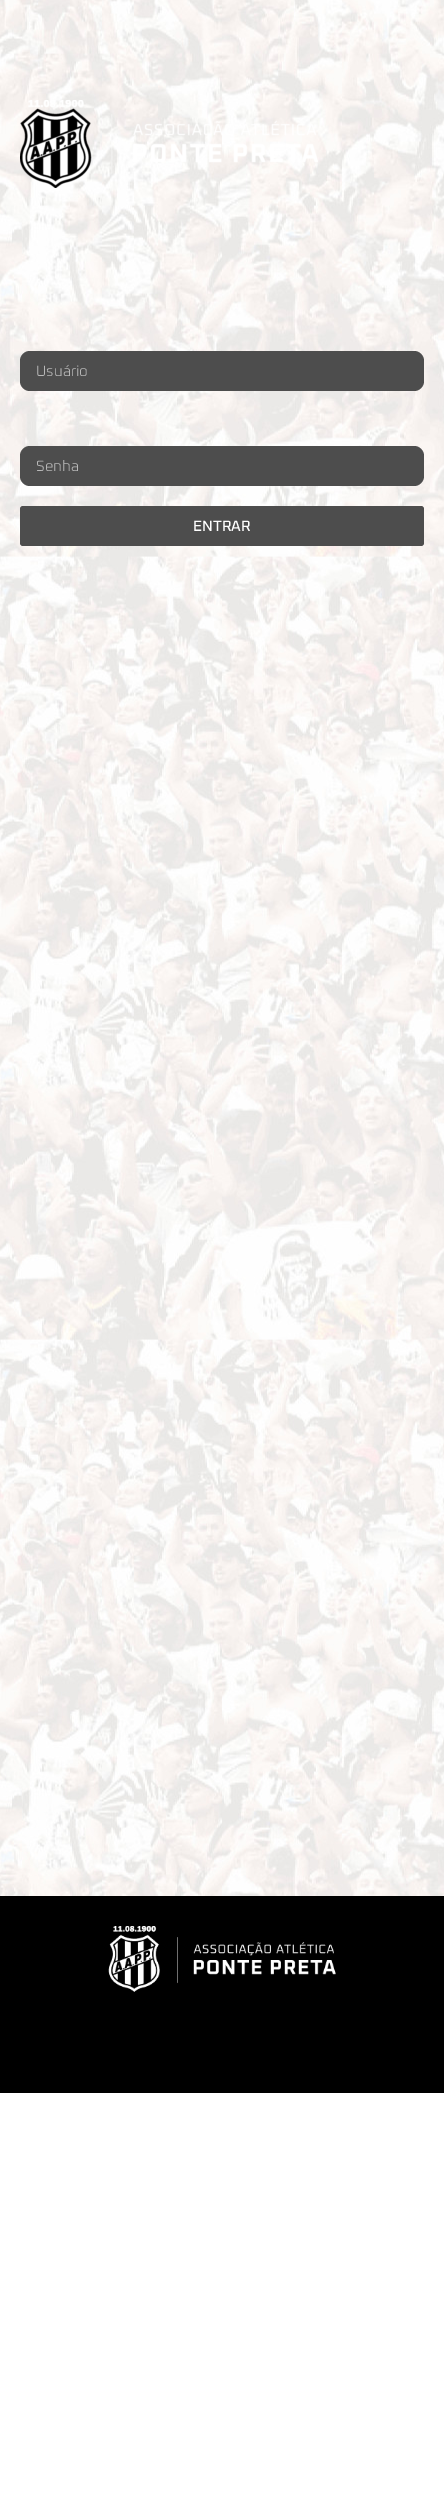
%!PS-Adobe-3.0
%%BoundingBox: 0 0 444 2495
%%LanguageLevel: 3
%%Pages: 1
%%EndComments
%%BeginProlog
/setink { dup -16 bitshift 255 div exch dup -8 bitshift 255 and 255 div exch 255 and 255 div setrgbcolor } def
/usefont { [ exch dup neg 0 0 3 -1 roll 0 0 ] selectfont } def
/rrect { 5 dict begin { /r /h /w /y /x } { exch def } forall
  x r add y moveto x w add y 2 copy h add r arct x w add y h add x 1 index r arct
  x y h add x y r arct x y 2 copy exch w add exch r arct closepath end } def
/drawimage { 5 dict begin { /h /w /y /x /name } { exch def } forall
  gsave x y translate w h scale
  w h 8 [w 0 0 h 0 0] name (r) file false 3 colorimage grestore end } def
%%EndProlog
%%BeginSetup
<< /PageSize [444 2495] >> setpagedevice
%%EndSetup
%%Page: 1 1
0 2495 translate 1 -1 scale
4 setmiterlimit
16#FFFFFF setink
0 0 444 2495 rectfill
(img1.raw) 0 0 444 1896 drawimage
(img2.raw) 20 100 298 88 drawimage
16#4D4D4D setink
20 351 404 40 10 rrect fill
/Oxanium-Light 15 usefont
16#B8B8B8 setink
36 376 moveto (Usuário) show
16#4D4D4D setink
20 446 404 40 10 rrect fill
16#B8B8B8 setink
36 471 moveto (Senha) show
16#4D4D4D setink
20 506 404 40 3 rrect fill
/Oxanium-Medium 15 usefont
16#FFFFFF setink
193 531 moveto (ENTRAR) show
16#000000 setink
0 1896 444 197 rectfill
(img3.raw) 108 1926 228 66 drawimage
showpage
%%EOF
